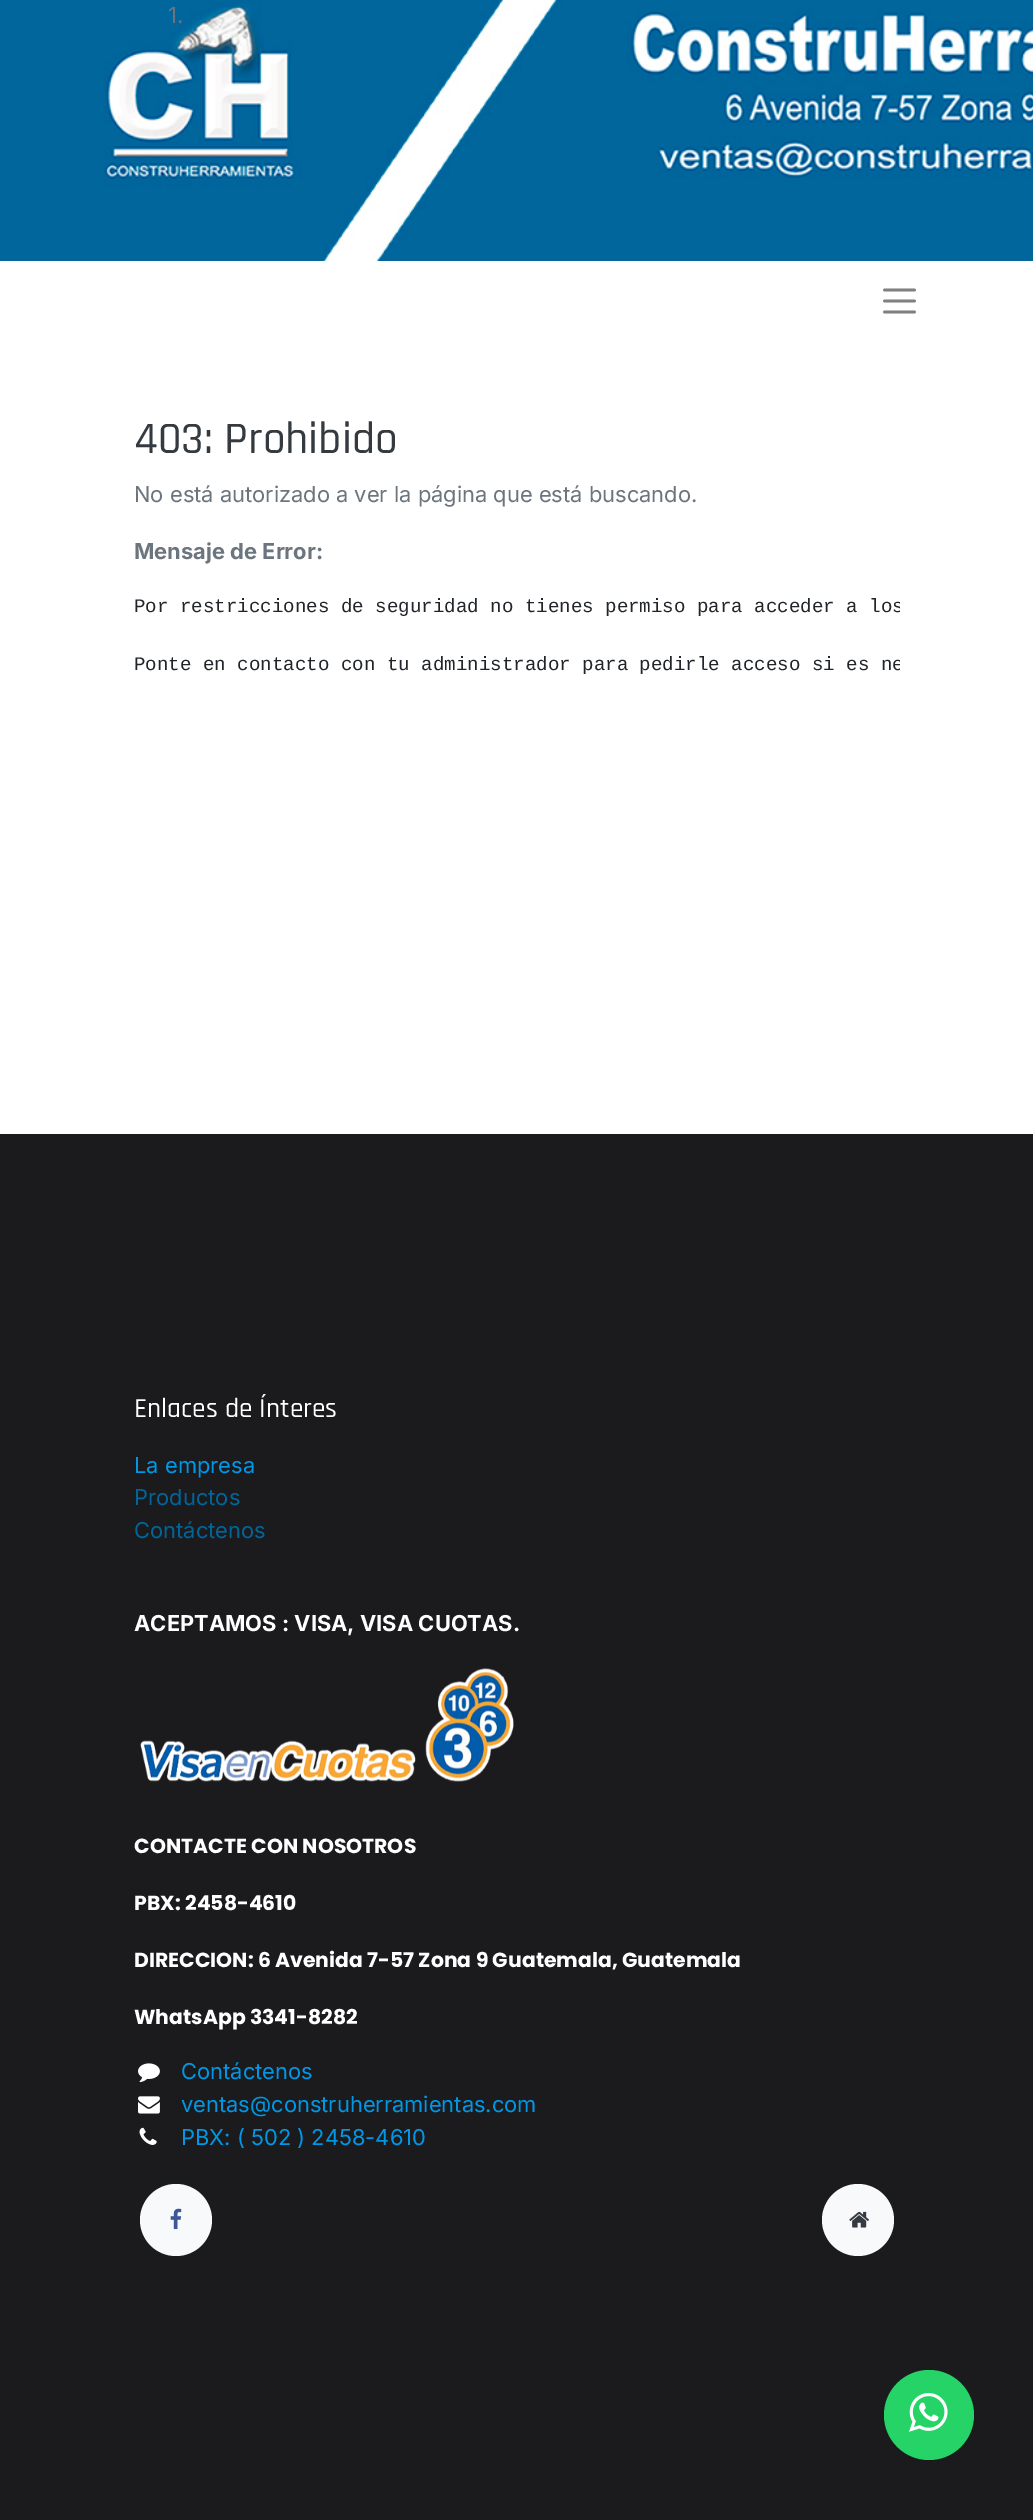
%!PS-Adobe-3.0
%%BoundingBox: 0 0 1033 2520
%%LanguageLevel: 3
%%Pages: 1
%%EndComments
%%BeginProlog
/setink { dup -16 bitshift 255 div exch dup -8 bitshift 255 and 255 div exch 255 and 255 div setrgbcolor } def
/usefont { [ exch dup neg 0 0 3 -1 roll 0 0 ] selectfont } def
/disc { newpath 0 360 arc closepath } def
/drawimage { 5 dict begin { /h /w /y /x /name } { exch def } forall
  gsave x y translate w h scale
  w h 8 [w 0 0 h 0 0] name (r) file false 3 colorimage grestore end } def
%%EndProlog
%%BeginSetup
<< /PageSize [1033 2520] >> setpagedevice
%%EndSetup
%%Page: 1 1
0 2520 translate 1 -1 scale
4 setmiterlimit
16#FFFFFF setink
0 0 1033 2520 rectfill
(img1.raw) 0 0 1033 261 drawimage
/Inter-Regular 21.9 usefont
16#6C757D setink
168 23 moveto (1.) show
16#808080 setink
2.7 setlinewidth
1 setlinecap
884.5 290 moveto 914.5 290 lineto 884.5 301 moveto 914.5 301 lineto 884.5 312 moveto 914.5 312 lineto stroke
/Rajdhani-Medium 45.25 usefont
16#343A40 setink
134 453 moveto (403: Prohibido) show
/Inter-Regular 21.9 usefont
16#6C757D setink
134 502 moveto (No está autorizado a ver la página que está buscando.) show
/Inter-Bold 21.9 usefont
134 559 moveto (Mensaje de Error:) show
gsave
135 593 765 87 rectclip
/LiberationMono-Regular 19.15 usefont
16#212529 setink
134 612 moveto (Por restricciones de seguridad no tienes permiso para acceder a los) show
134 670 moveto (Ponte en contacto con tu administrador para pedirle acceso si es ne) show
grestore
16#1B1B1E setink
0 1134 1033 1386 rectfill
/Rajdhani-Medium 27.5 usefont
16#FFFFFF setink
134 1417 moveto (Enlaces de Ínteres) show
/Inter-Regular 21.9 usefont
16#0098E6 setink
134 1473 moveto (La empresa) show
16#006599 setink
134 1505 moveto (Productos) show
134 1538 moveto (Contáctenos) show
/Inter-Bold 21.9 usefont
16#FFFFFF setink
134 1631 moveto (ACEPTAMOS : VISA, VISA CUOTAS.) show
(img2.raw) 140 1668 374 114 drawimage
/Poppins-Bold 20.4 usefont
[
    [(CONTACTE CON NOSOTROS) 134 1853]
    [(PBX: 2458-4610) 134 1910]
    [(DIRECCION: 6 Avenida 7-57 Zona 9 Guatemala, Guatemala) 134 1967]
    [(WhatsApp 3341-8282) 134 2024]
] { aload pop moveto show } forall
(img3.raw) 138 2063 22 20 drawimage
/Inter-Regular 21.9 usefont
16#0098E6 setink
181 2079 moveto (Contáctenos) show
(img4.raw) 138 2096 22 18 drawimage
181 2112 moveto (ventas@construherramientas.com) show
(img5.raw) 139 2127 18 18 drawimage
181 2145 moveto (PBX: \( 502 \) 2458-4610) show
16#F8F9FA setink
176 2220 36 disc fill
(img6.raw) 170 2208 12 22 drawimage
858 2220 36 disc fill
(img7.raw) 849 2211 20 17 drawimage
16#25D366 setink
929 2415 45 disc fill
(img8.raw) 909 2393 39 39 drawimage
showpage
%%EOF
